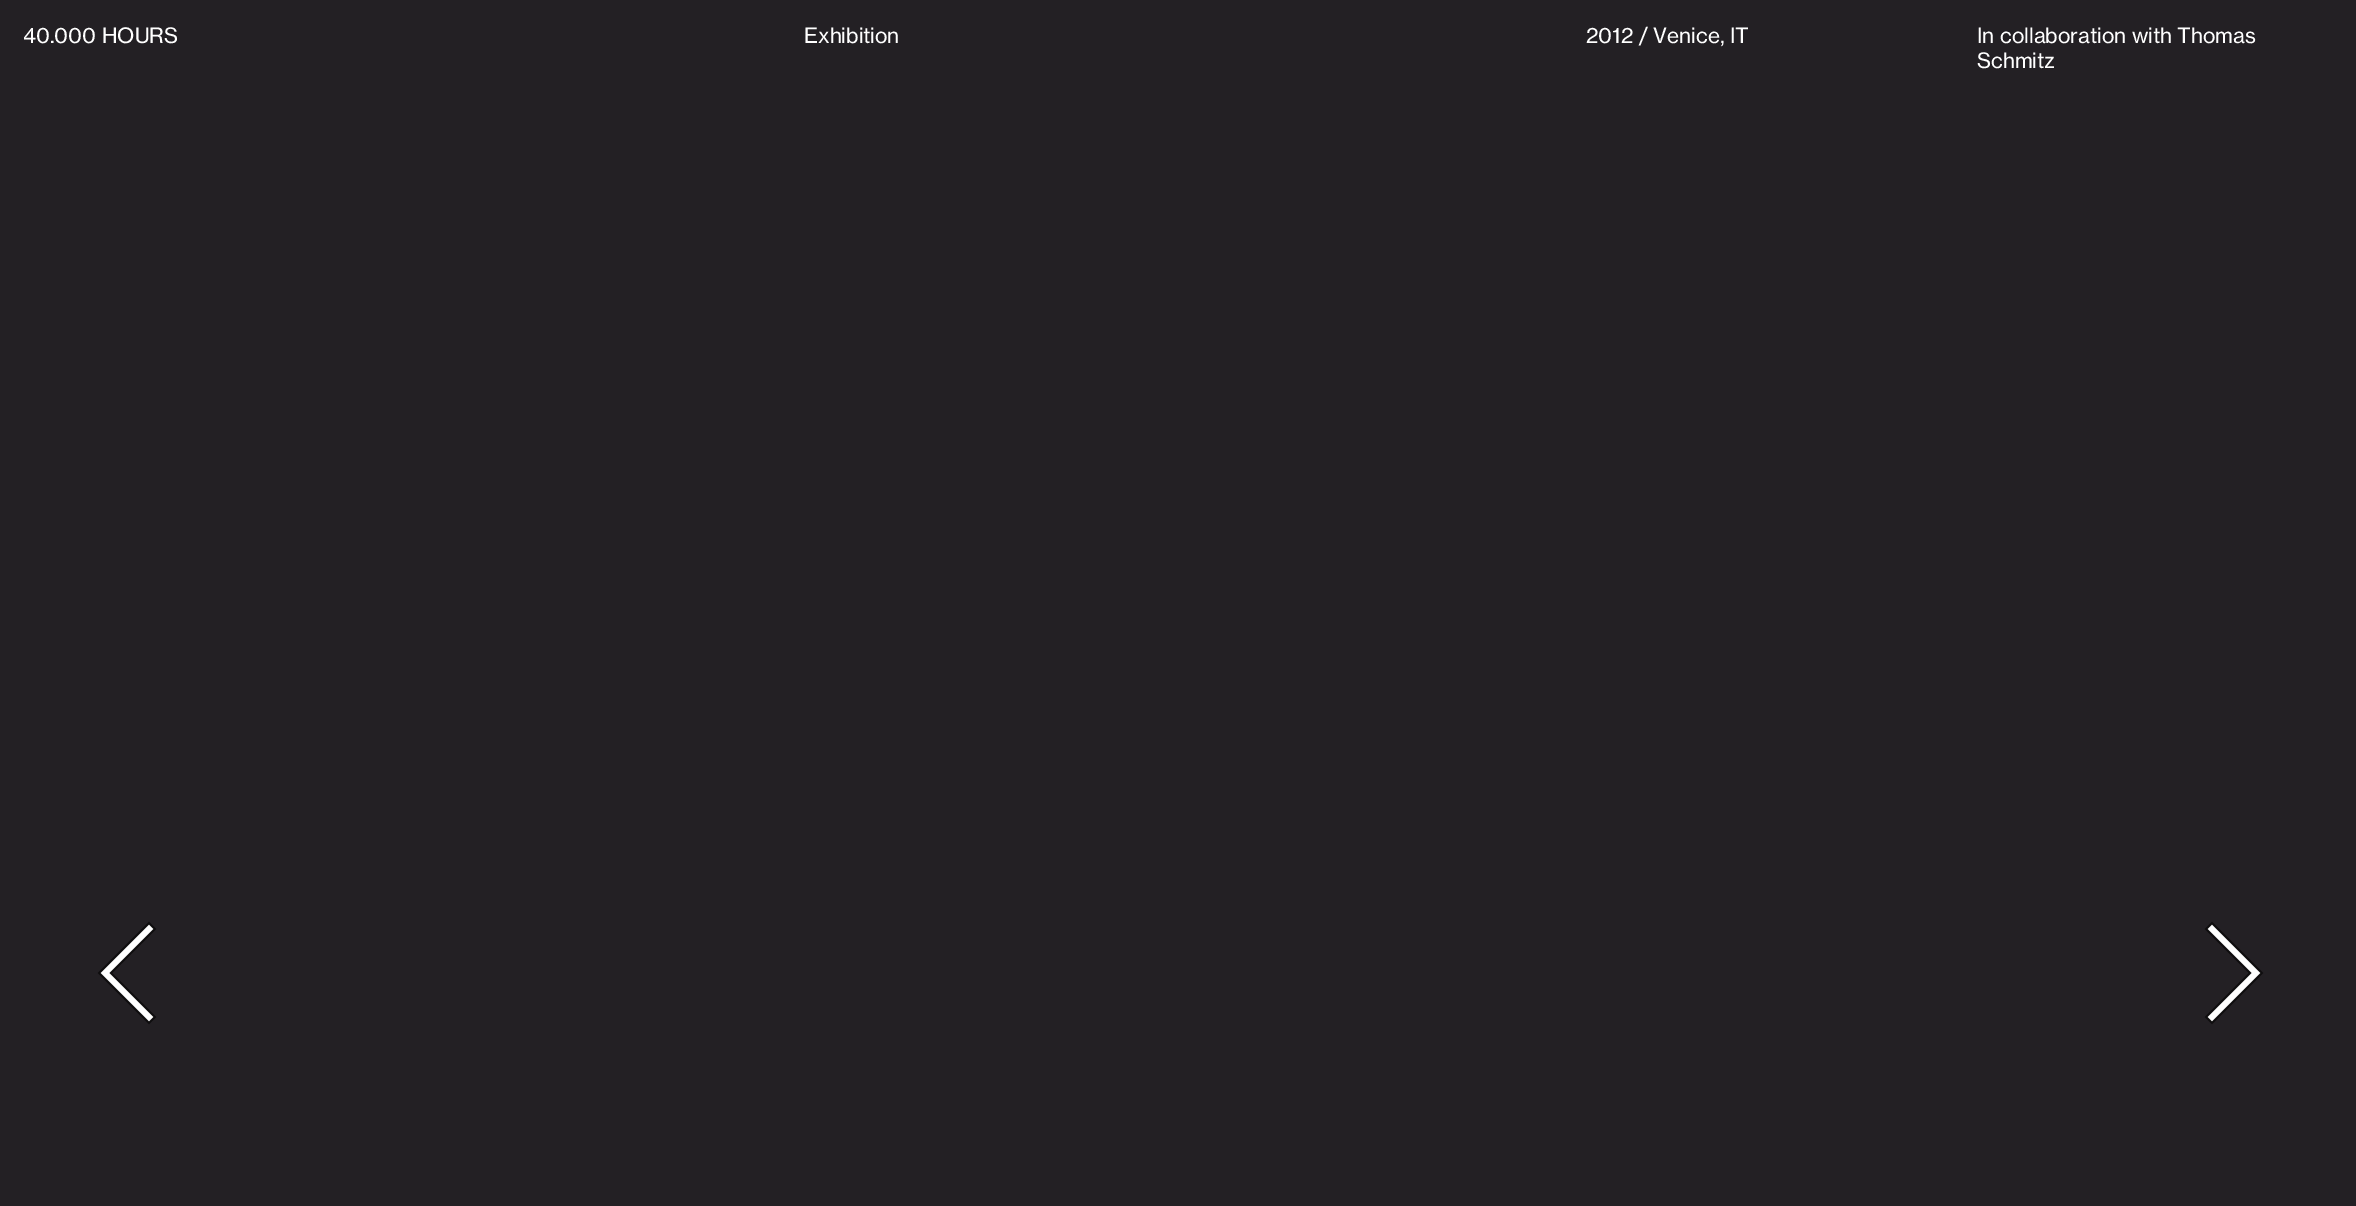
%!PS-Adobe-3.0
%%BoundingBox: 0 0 2356 1206
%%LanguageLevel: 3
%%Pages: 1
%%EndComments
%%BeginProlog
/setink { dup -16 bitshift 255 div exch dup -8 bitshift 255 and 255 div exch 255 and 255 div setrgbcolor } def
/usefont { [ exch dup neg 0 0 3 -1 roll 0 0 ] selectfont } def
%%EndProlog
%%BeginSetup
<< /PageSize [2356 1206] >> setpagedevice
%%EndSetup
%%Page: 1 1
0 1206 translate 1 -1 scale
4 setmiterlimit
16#232024 setink
0 0 2356 1206 rectfill
/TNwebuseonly-Regular 20.9 usefont
16#FFFFFF setink
[
    [(40.000 HOURS) 23 43]
    [(Exhibition) 804 43]
    [(2012 / Venice, IT) 1586 43]
    [(In collaboration with Thomas) 1977 43]
    [(Schmitz) 1977 68]
] { aload pop moveto show } forall
16#0E0D0E setink
10 setlinewidth
2 setlinecap
149 1017 moveto 105 973 lineto 149 929 lineto stroke
16#FFFFFF setink
6 setlinewidth
149 1017 moveto 105 973 lineto 149 929 lineto stroke
16#0E0D0E setink
10 setlinewidth
2212 1017 moveto 2256 973 lineto 2212 929 lineto stroke
16#FFFFFF setink
6 setlinewidth
2212 1017 moveto 2256 973 lineto 2212 929 lineto stroke
showpage
%%EOF
